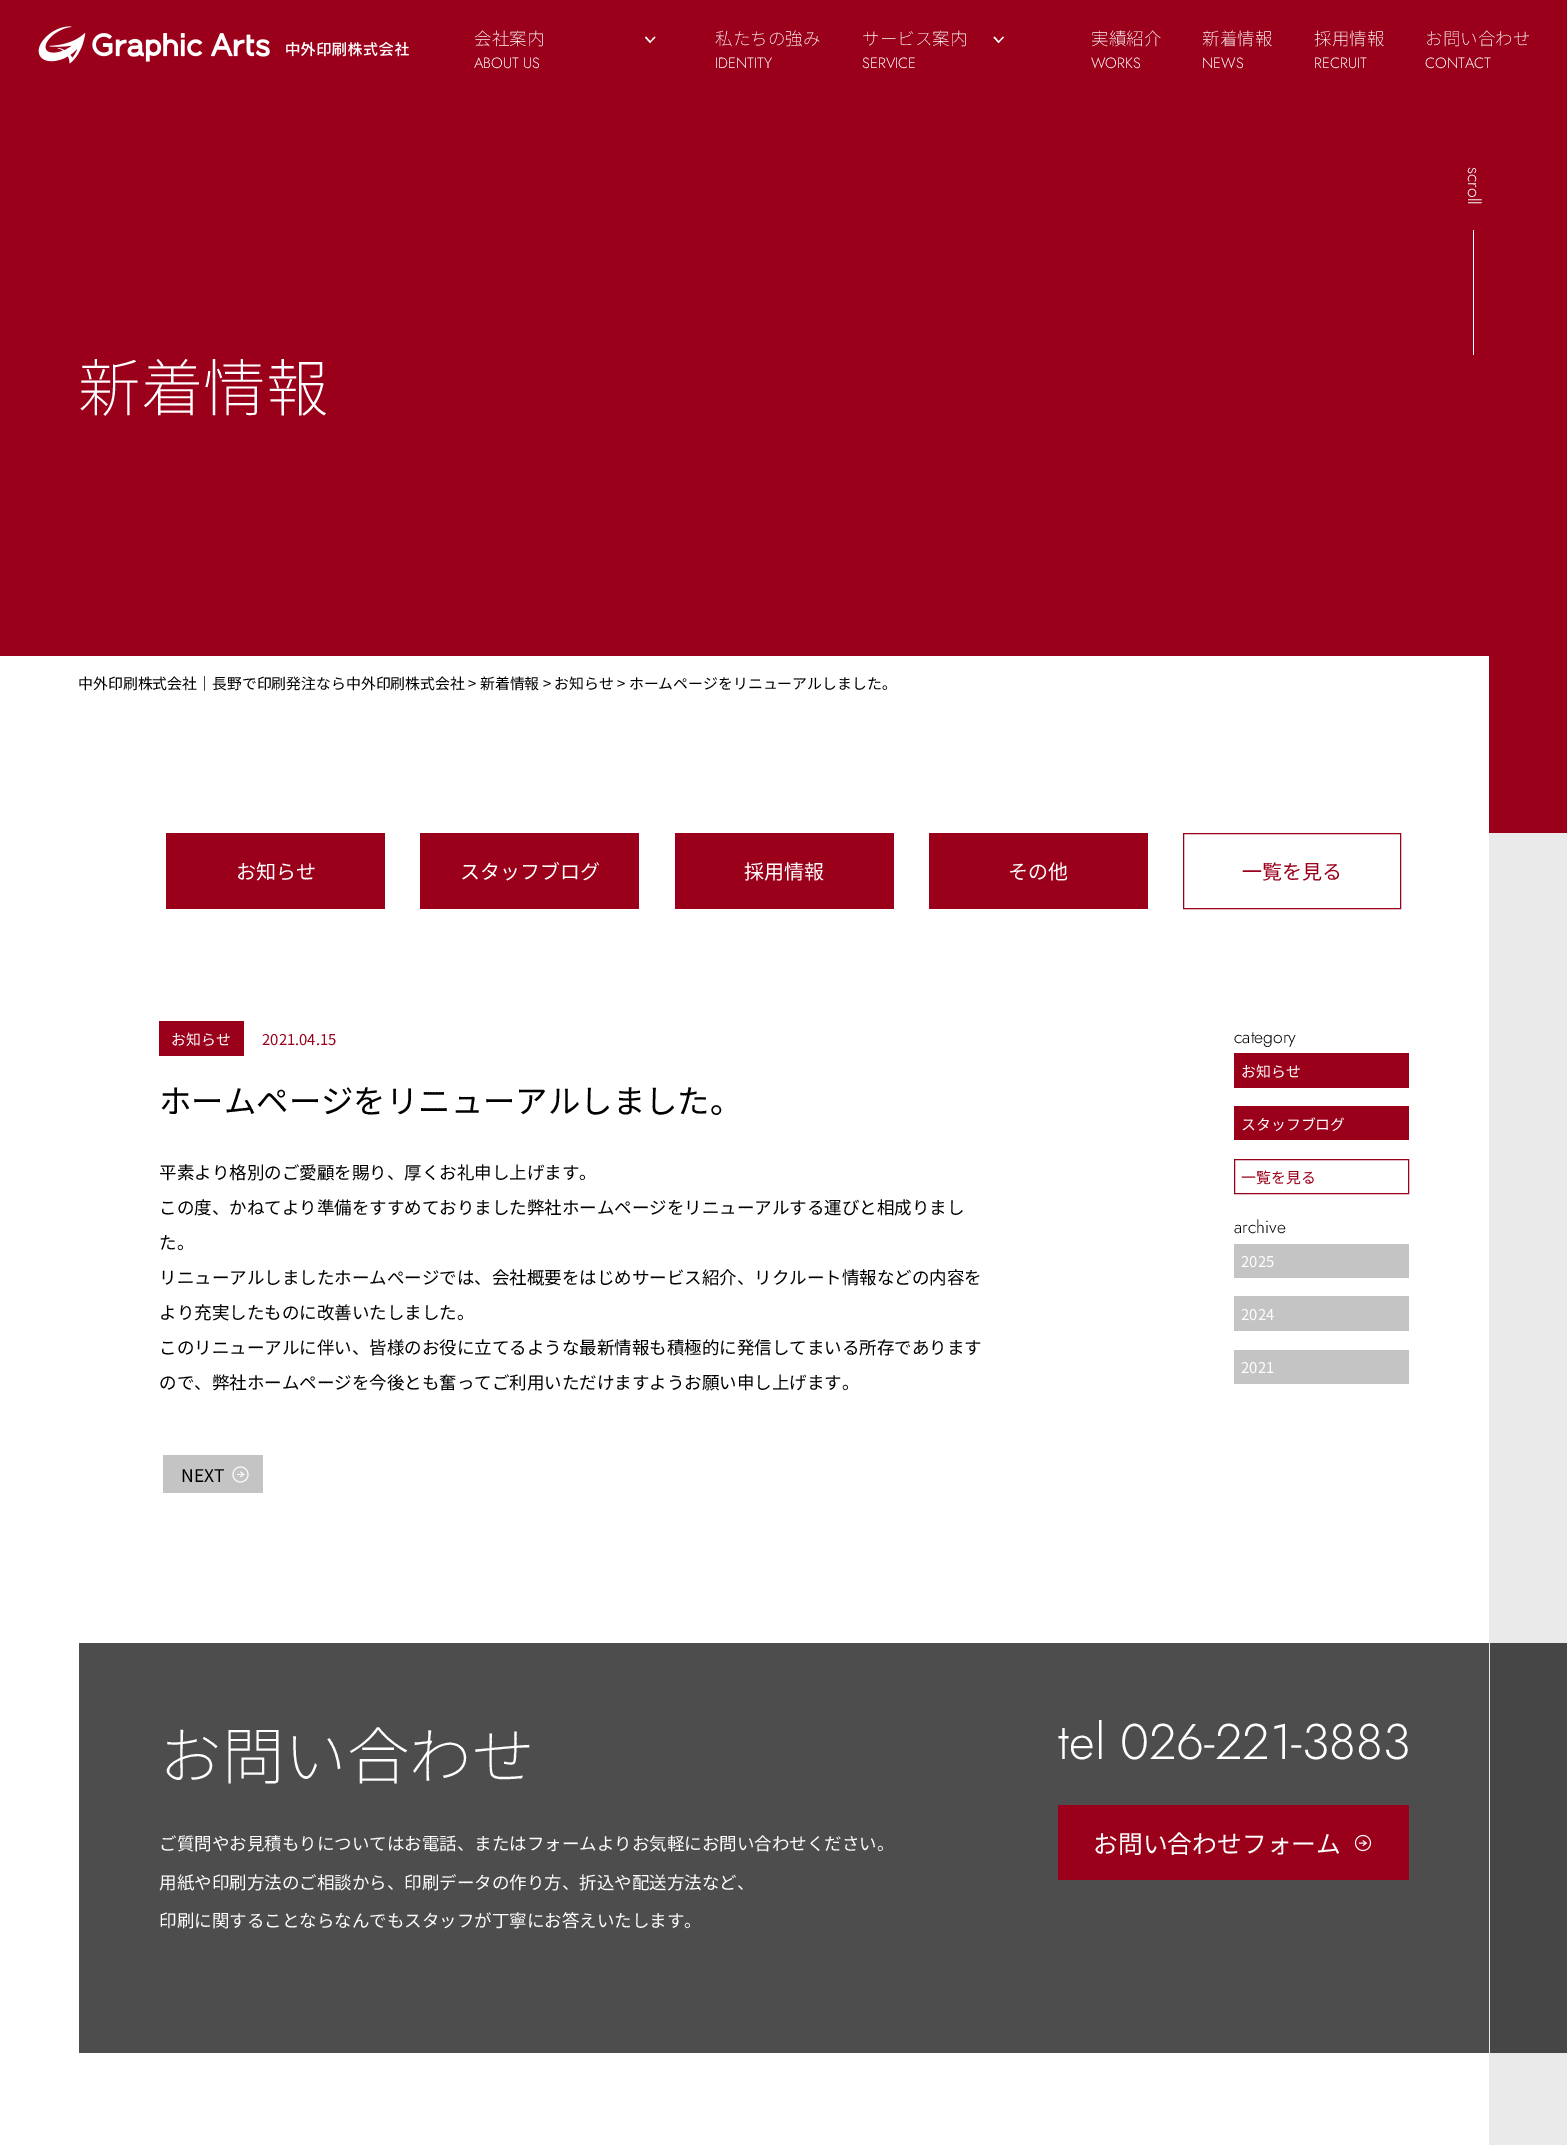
%!PS-Adobe-3.0
%%BoundingBox: 0 0 1567 2145
%%LanguageLevel: 3
%%Pages: 1
%%EndComments
%%BeginProlog
/setink { dup -16 bitshift 255 div exch dup -8 bitshift 255 and 255 div exch 255 and 255 div setrgbcolor } def
/usefont { [ exch dup neg 0 0 3 -1 roll 0 0 ] selectfont } def
/drawimage { 5 dict begin { /h /w /y /x /name } { exch def } forall
  gsave x y translate w h scale
  w h 8 [w 0 0 h 0 0] name (r) file false 3 colorimage grestore end } def
%%EndProlog
%%BeginSetup
<< /PageSize [1567 2145] >> setpagedevice
%%EndSetup
%%Page: 1 1
0 2145 translate 1 -1 scale
4 setmiterlimit
16#EAEAEA setink
0 0 1567 2145 rectfill
16#9A001A setink
0 0 1567 833 rectfill
(img1.raw) 38 26 371 38 drawimage
/NotoSansJP-ExtraLight 17.5 usefont
16#FFFFFF setink
474 45 moveto (会社案内) show
/Jost-Light 14.88 usefont
474 68 moveto (ABOUT US) show
655.5 37.5 moveto 650 43 lineto 649.5 42 lineto 654.5 36.5 lineto closepath fill
651 42 moveto 650 43 lineto 645 37.5 lineto 646 36.5 lineto closepath fill
/NotoSansJP-ExtraLight 17.5 usefont
715 45 moveto (私たちの強み) show
/Jost-Light 14.88 usefont
715 68 moveto (IDENTITY) show
/NotoSansJP-ExtraLight 17.5 usefont
862 45 moveto (サービス案内) show
/Jost-Light 14.88 usefont
862 68 moveto (SERVICE) show
1004 37.5 moveto 998.5 43 lineto 998 42 lineto 1003 36.5 lineto closepath fill
999.5 42 moveto 998.5 43 lineto 993.5 37.5 lineto 994.5 36.5 lineto closepath fill
/NotoSansJP-ExtraLight 17.5 usefont
1091 45 moveto (実績紹介) show
/Jost-Light 14.88 usefont
1091 68 moveto (WORKS) show
/NotoSansJP-ExtraLight 17.5 usefont
1202 45 moveto (新着情報) show
/Jost-Light 14.88 usefont
1202 68 moveto (NEWS) show
/NotoSansJP-ExtraLight 17.5 usefont
1314 45 moveto (採用情報) show
/Jost-Light 14.88 usefont
1314 68 moveto (RECRUIT) show
/NotoSansJP-ExtraLight 17.5 usefont
1425 45 moveto (お問い合わせ) show
/Jost-Light 14.88 usefont
1425 68 moveto (CONTACT) show
/Jost-Light 17.5 usefont
gsave 1468 167 translate 90 rotate 0 0 moveto (scroll) show grestore
1473 230 1 125 rectfill
/NotoSansJP-ExtraLight 62.5 usefont
78 411 moveto (新着情報) show
80 656 1409 1489 rectfill
0 656 80 1489 rectfill
/NotoSansJP-Regular 14.88 usefont
16#000000 setink
78 689 moveto (中外印刷株式会社｜長野で印刷発注なら中外印刷株式会社 > 新着情報 > お知らせ > ホームページをリニューアルしました。) show
16#9A001A setink
166 833 219 76 rectfill
/NotoSansJP-Regular 20 usefont
16#FFFFFF setink
236 879 moveto (お知らせ) show
16#9A001A setink
420 833 219 76 rectfill
16#FFFFFF setink
460 879 moveto (スタッフブログ) show
16#9A001A setink
675 833 219 76 rectfill
16#FFFFFF setink
744 879 moveto (採用情報) show
16#9A001A setink
929 833 219 76 rectfill
16#FFFFFF setink
1008 879 moveto (その他) show
16#9A001A setink
1183.5 833.5 217 75 rectstroke
1242 879 moveto (一覧を見る) show
159 1021 85 35 rectfill
/NotoSansJP-Regular 14.88 usefont
16#FFFFFF setink
171 1045 moveto (お知らせ) show
16#9A001A setink
262 1045 moveto (2021.04.15) show
/NotoSansJP-Regular 32.4 usefont
16#000000 setink
159 1113 moveto (ホームページをリニューアルしました。) show
/NotoSansJP-Regular 17.5 usefont
[
    [(平素より格別のご愛顧を賜り、厚くお礼申し上げます。) 159 1179]
    [(この度、かねてより準備をすすめておりました弊社ホームページをリニューアルする運びと相成りまし) 159 1214]
    [(た。) 159 1249]
    [(リニューアルしましたホームぺージでは、会社概要をはじめサービス紹介、リクルート情報などの内容を) 159 1284]
    [(より充実したものに改善いたしました。) 159 1319]
    [(このリニューアルに伴い、皆様のお役に立てるような最新情報も積極的に発信してまいる所存であります) 159 1354]
    [(ので、弊社ホームページを今後とも奮ってご利用いただけますようお願い申し上げます。) 159 1389]
] { aload pop moveto show } forall
16#C4C4C4 setink
163 1455 100 38 rectfill
(img2.raw) 232 1466 17 17 drawimage
16#000000 setink
181 1482 moveto (NEXT) show
/Jost-Light 17.5 usefont
1234 1043 moveto (category) show
16#9A001A setink
1234 1053 175 35 rectfill
/NotoSansJP-Regular 14.88 usefont
16#FFFFFF setink
1241 1077 moveto (お知らせ) show
16#9A001A setink
1234 1106 175 34 rectfill
16#FFFFFF setink
1241 1130 moveto (スタッフブログ) show
16#9A001A setink
1234.5 1159.5 174 34 rectstroke
1241 1183 moveto (一覧を見る) show
/Jost-Light 17.5 usefont
16#000000 setink
1234 1233 moveto (archive) show
16#C4C4C4 setink
1234 1244 175 34 rectfill
/NotoSansJP-Regular 14.88 usefont
16#FFFFFF setink
1241 1267 moveto (2025) show
16#C4C4C4 setink
1234 1296 175 35 rectfill
16#FFFFFF setink
1241 1320 moveto (2024) show
16#C4C4C4 setink
1234 1350 175 34 rectfill
16#FFFFFF setink
1241 1373 moveto (2021) show
16#4D4D4D setink
79 1643 1410 410 rectfill
/NotoSansJP-ExtraLight 62.5 usefont
16#FFFFFF setink
159 1779 moveto (お問い合わせ) show
/NotoSansJP-Regular 17.5 usefont
[
    [(ご質問やお見積もりについてはお電話、またはフォームよりお気軽にお問い合わせください。) 159 1850]
    [(用紙や印刷方法のご相談から、印刷データの作り方、折込や配送方法など、) 159 1889]
    [(印刷に関することならなんでもスタッフが丁寧にお答えいたします。) 159 1927]
] { aload pop moveto show } forall
/Jost-Light 50 usefont
1058 1759 moveto (tel 026-221-3883) show
16#9A001A setink
1058 1805 351 75 rectfill
/NotoSansJP-Regular 24.8 usefont
16#FFFFFF setink
1093 1853 moveto (お問い合わせフォーム) show
(img3.raw) 1354 1834 18 18 drawimage
16#464646 setink
1490 1643 77 410 rectfill
showpage
%%EOF
